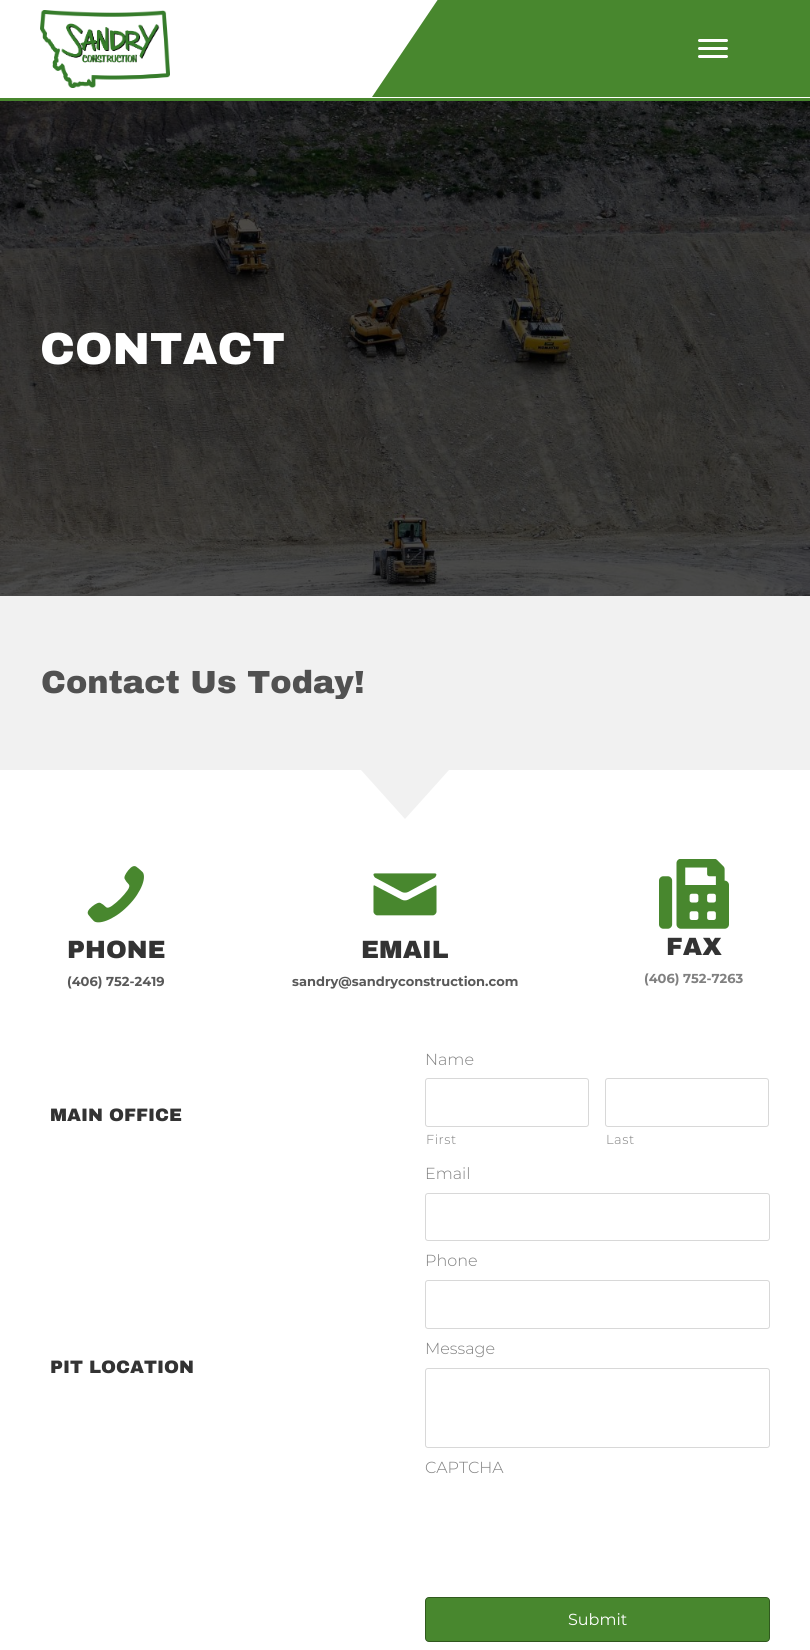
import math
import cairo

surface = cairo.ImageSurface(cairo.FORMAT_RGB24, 810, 1650)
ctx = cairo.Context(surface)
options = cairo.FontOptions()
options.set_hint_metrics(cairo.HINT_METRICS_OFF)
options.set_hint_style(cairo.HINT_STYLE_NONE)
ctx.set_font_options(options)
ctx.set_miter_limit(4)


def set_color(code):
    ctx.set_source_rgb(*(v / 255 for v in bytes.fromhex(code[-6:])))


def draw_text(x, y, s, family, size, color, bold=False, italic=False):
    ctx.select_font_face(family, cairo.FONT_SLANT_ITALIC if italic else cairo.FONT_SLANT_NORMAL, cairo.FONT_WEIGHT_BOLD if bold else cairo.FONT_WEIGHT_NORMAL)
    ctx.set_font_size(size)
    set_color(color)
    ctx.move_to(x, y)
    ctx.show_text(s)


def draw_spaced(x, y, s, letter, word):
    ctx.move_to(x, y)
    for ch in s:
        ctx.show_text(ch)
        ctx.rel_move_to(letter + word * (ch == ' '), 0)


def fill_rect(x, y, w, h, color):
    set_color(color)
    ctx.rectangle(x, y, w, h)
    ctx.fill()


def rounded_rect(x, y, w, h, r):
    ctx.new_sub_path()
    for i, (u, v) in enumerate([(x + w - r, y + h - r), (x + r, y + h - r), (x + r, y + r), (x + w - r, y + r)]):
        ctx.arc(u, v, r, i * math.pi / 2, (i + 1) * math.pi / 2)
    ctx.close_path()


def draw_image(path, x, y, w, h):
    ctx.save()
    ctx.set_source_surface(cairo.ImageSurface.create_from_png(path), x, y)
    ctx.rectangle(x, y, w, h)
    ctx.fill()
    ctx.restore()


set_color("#ffffff")
ctx.paint()
fill_rect(0, 98, 810, 3, "#48872e")
ctx.new_path()
ctx.move_to(810, -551)
ctx.line_to(372, 97)
ctx.line_to(810, 97)
ctx.close_path()
ctx.fill()
draw_image("assets/img1.png", 40, 10, 130, 78)
set_color("#ffffff")
rounded_rect(698, 47, 30, 3, 1.5)
ctx.fill()
rounded_rect(698, 39, 30, 3, 1.5)
ctx.fill()
rounded_rect(698, 55, 30, 3, 1.5)
ctx.fill()
draw_image("assets/img2.png", 0, 101, 810, 495)
draw_text(40, 364, "CONTACT", "Archivo Black Black", 45, "#ffffff")
fill_rect(0, 596, 810, 223, "#f1f1f1")
ctx.save()
ctx.rectangle(40, 666, 325, 33)
ctx.clip()
draw_text(41, 693, "Contact Us Today!", "Archivo Black Black", 32, "#515151")
ctx.restore()
set_color("#ffffff")
ctx.new_path()
ctx.move_to(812, 770)
ctx.line_to(449, 770)
ctx.line_to(405, 819)
ctx.line_to(361, 770)
ctx.line_to(-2, 770)
ctx.line_to(-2, 820)
ctx.line_to(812, 820)
ctx.close_path()
ctx.fill()
draw_image("assets/img3.png", 87, 866, 57, 57)
draw_text(67, 958, "PHONE", "Archivo Black Black", 25, "#333333")
draw_text(67, 986, "(406) 752-2419", "Montserrat", 13, "#595959", bold=True)
draw_image("assets/img4.png", 373, 873, 64, 43)
draw_text(361, 958, "EMAIL", "Archivo Black Black", 25, "#333333")
draw_text(292, 986, "sandry@sandryconstruction.com", "Montserrat", 13, "#595959", bold=True)
draw_image("assets/img5.png", 659, 859, 70, 70)
draw_text(666, 955, "FAX", "Archivo Black Black", 25, "#333333")
draw_text(644, 983, "(406) 752-7263", "Montserrat", 13, "#808080", bold=True)
draw_text(50, 1121, "MAIN OFFICE", "Archivo Black Black", 18, "#333333")
draw_text(50, 1373, "PIT LOCATION", "Archivo Black Black", 18, "#333333")
draw_text(425, 1065, "Name", "Montserrat Light", 16, "#808080")
rounded_rect(425.5, 1078.5, 163, 48, 2.5)
set_color("#d8d8d8")
ctx.set_line_width(1)
ctx.stroke()
ctx.set_font_size(13)
set_color("#808080")
draw_spaced(426, 1144, "First", 0.5, 0)
rounded_rect(605.5, 1078.5, 163, 48, 2.5)
set_color("#d8d8d8")
ctx.stroke()
set_color("#808080")
draw_spaced(606, 1144, "Last", 0.5, 0)
draw_text(425, 1179, "Email", "Montserrat Light", 16, "#808080")
rounded_rect(425.5, 1193.5, 344, 47, 2.5)
set_color("#d8d8d8")
ctx.stroke()
draw_text(425, 1266, "Phone", "Montserrat Light", 16, "#808080")
rounded_rect(425.5, 1280.5, 344, 48, 2.5)
set_color("#d8d8d8")
ctx.stroke()
draw_text(425, 1354, "Message", "Montserrat Light", 16, "#808080")
rounded_rect(425.5, 1368.5, 344, 79, 2.5)
set_color("#d8d8d8")
ctx.stroke()
draw_text(425, 1473, "CAPTCHA", "Montserrat Light", 16, "#808080")
set_color("#48872e")
rounded_rect(425.5, 1597.5, 344, 44, 3.5)
ctx.fill_preserve()
set_color("#30591e")
ctx.stroke()
draw_text(568, 1625, "Submit", "Montserrat", 16, "#ffffff")
surface.write_to_png("output.png")
